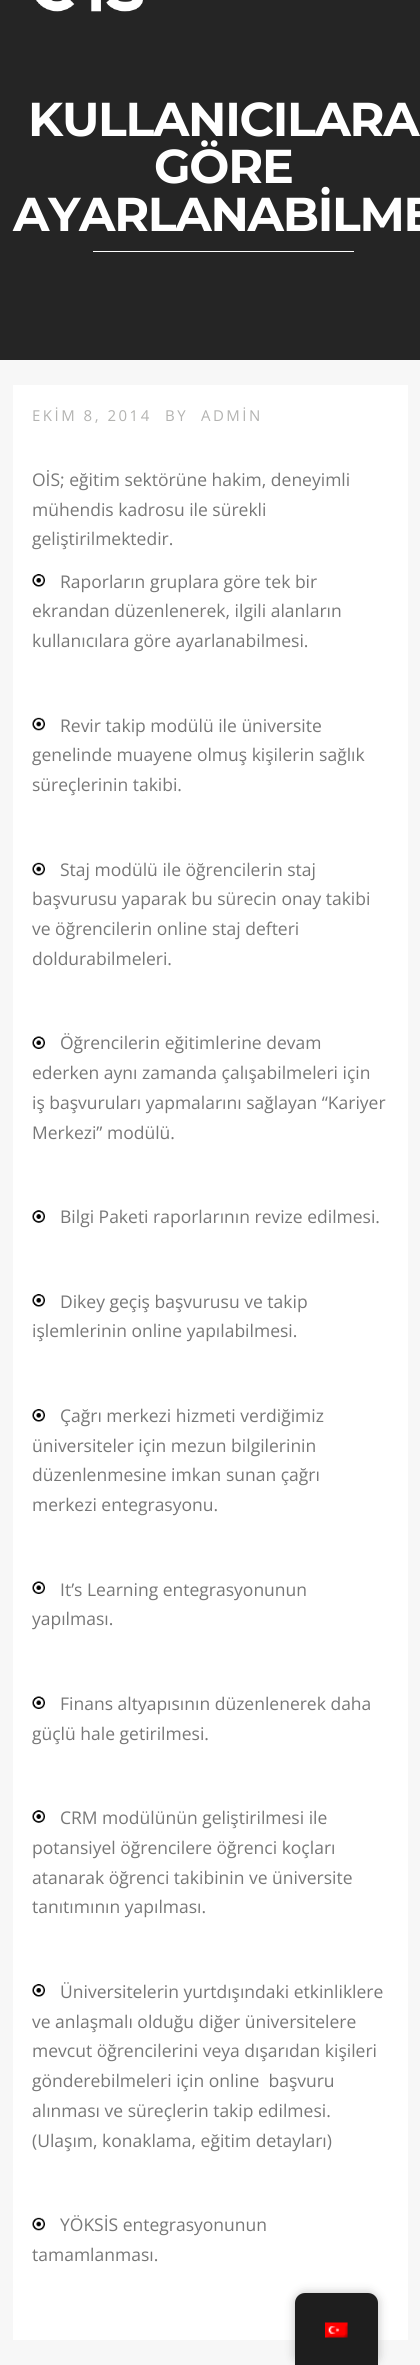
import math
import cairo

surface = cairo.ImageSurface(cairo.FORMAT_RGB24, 420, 2365)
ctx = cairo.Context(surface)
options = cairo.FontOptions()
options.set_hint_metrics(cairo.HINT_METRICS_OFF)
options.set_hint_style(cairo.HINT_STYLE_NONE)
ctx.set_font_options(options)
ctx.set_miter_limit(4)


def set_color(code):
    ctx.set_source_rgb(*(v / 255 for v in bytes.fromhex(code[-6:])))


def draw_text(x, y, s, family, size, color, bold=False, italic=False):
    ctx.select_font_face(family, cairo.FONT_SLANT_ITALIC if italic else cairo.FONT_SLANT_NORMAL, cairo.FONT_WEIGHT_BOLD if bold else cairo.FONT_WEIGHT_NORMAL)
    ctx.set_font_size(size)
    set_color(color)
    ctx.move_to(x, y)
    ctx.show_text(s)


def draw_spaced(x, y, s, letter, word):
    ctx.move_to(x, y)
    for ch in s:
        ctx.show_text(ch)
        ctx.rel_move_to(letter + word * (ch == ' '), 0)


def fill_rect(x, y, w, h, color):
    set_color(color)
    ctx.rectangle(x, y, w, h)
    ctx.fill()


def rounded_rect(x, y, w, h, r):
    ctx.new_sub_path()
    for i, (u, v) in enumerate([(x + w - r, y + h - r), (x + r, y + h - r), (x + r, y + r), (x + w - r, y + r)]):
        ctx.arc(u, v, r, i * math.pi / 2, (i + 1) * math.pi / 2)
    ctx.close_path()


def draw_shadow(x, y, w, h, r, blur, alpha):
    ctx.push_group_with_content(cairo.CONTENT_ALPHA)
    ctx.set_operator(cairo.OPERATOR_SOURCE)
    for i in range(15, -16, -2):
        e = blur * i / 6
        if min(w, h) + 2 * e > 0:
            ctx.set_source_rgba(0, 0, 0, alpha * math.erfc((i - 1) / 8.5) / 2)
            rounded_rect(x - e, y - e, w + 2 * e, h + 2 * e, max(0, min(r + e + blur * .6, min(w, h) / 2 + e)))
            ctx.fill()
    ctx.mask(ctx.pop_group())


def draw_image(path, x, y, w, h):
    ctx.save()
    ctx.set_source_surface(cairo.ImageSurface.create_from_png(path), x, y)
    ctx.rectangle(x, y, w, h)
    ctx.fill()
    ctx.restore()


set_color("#f7f7f7")
ctx.paint()
fill_rect(0, 0, 420, 360, "#252525")
draw_image("assets/img1.png", 36, 0, 107, 12)
ctx.select_font_face("Montserrat", cairo.FONT_SLANT_NORMAL, cairo.FONT_WEIGHT_BOLD)
ctx.set_font_size(47.5)
set_color("#ffffff")
draw_spaced(28, 136, "KULLANICILARA", -1.25, 0)
draw_spaced(154, 183, "GÖRE", -1.25, 0)
draw_spaced(13, 231, "AYARLANABİLME", -1.25, 0)
fill_rect(93, 251, 261, 1, "#ffffff")
fill_rect(13, 385, 395, 1955, "#ffffff")
ctx.select_font_face("Open Sans")
ctx.set_font_size(15)
set_color("#b3b3b1")
draw_spaced(32, 421, "EKİM 8, 2014", 2.5, 0)
draw_spaced(165, 421, "BY", 2.5, 0)
draw_spaced(201, 421, "ADMİN", 2.5, 0)
draw_text(32, 486, "OİS; eğitim sektörüne hakim, deneyimli", "Open Sans", 17.5, "#777777")
draw_text(32, 516, "mühendis kadrosu ile sürekli", "Open Sans", 17.5, "#777777")
draw_text(32, 545, "geliştirilmektedir.", "Open Sans", 17.5, "#777777")
draw_image("assets/img2.png", 32, 574, 13, 13)
draw_text(60, 588, "Raporların gruplara göre tek bir", "Open Sans", 17.5, "#777777")
draw_text(32, 617, "ekrandan düzenlenerek, ilgili alanların", "Open Sans", 17.5, "#777777")
draw_text(32, 647, "kullanıcılara göre ayarlanabilmesi.", "Open Sans", 17.5, "#777777")
draw_image("assets/img3.png", 32, 717, 13, 14)
draw_text(60, 732, "Revir takip modülü ile üniversite", "Open Sans", 17.5, "#777777")
draw_text(32, 761, "genelinde muayene olmuş kişilerin sağlık", "Open Sans", 17.5, "#777777")
draw_text(32, 791, "süreçlerinin takibi.", "Open Sans", 17.5, "#777777")
draw_image("assets/img3.png", 32, 862, 13, 14)
draw_text(60, 876, "Staj modülü ile öğrencilerin staj", "Open Sans", 17.5, "#777777")
draw_text(32, 905, "başvurusu yaparak bu sürecin onay takibi", "Open Sans", 17.5, "#777777")
draw_text(32, 935, "ve öğrencilerin online staj defteri", "Open Sans", 17.5, "#777777")
draw_text(32, 965, "doldurabilmeleri.", "Open Sans", 17.5, "#777777")
draw_image("assets/img4.png", 32, 1036, 13, 13)
draw_text(60, 1049, "Öğrencilerin eğitimlerine devam", "Open Sans", 17.5, "#777777")
draw_text(32, 1079, "ederken aynı zamanda çalışabilmeleri için", "Open Sans", 17.5, "#777777")
draw_text(32, 1109, "iş başvuruları yapmalarını sağlayan “Kariyer", "Open Sans", 17.5, "#777777")
draw_text(32, 1139, "Merkezi” modülü.", "Open Sans", 17.5, "#777777")
draw_image("assets/img5.png", 32, 1210, 13, 13)
draw_text(60, 1223, "Bilgi Paketi raporlarının revize edilmesi.", "Open Sans", 17.5, "#777777")
draw_image("assets/img2.png", 32, 1294, 13, 13)
draw_text(60, 1308, "Dikey geçiş başvurusu ve takip", "Open Sans", 17.5, "#777777")
draw_text(32, 1337, "işlemlerinin online yapılabilmesi.", "Open Sans", 17.5, "#777777")
draw_image("assets/img2.png", 32, 1409, 13, 13)
draw_text(60, 1422, "Çağrı merkezi hizmeti verdiğimiz", "Open Sans", 17.5, "#777777")
draw_text(32, 1452, "üniversiteler için mezun bilgilerinin", "Open Sans", 17.5, "#777777")
draw_text(32, 1481, "düzenlenmesine imkan sunan çağrı", "Open Sans", 17.5, "#777777")
draw_text(32, 1511, "merkezi entegrasyonu.", "Open Sans", 17.5, "#777777")
draw_image("assets/img4.png", 32, 1581, 13, 13)
draw_text(60, 1596, "It’s Learning entegrasyonunun", "Open Sans", 17.5, "#777777")
draw_text(32, 1625, "yapılması.", "Open Sans", 17.5, "#777777")
draw_image("assets/img4.png", 32, 1696, 13, 13)
draw_text(60, 1710, "Finans altyapısının düzenlenerek daha", "Open Sans", 17.5, "#777777")
draw_text(32, 1740, "güçlü hale getirilmesi.", "Open Sans", 17.5, "#777777")
draw_image("assets/img5.png", 32, 1810, 13, 13)
draw_text(60, 1824, "CRM modülünün geliştirilmesi ile", "Open Sans", 17.5, "#777777")
draw_text(32, 1854, "potansiyel öğrencilere öğrenci koçları", "Open Sans", 17.5, "#777777")
draw_text(32, 1884, "atanarak öğrenci takibinin ve üniversite", "Open Sans", 17.5, "#777777")
draw_text(32, 1913, "tanıtımının yapılması.", "Open Sans", 17.5, "#777777")
draw_image("assets/img2.png", 32, 1984, 13, 13)
draw_text(60, 1998, "Üniversitelerin yurtdışındaki etkinliklere", "Open Sans", 17.5, "#777777")
draw_text(32, 2028, "ve anlaşmalı olduğu diğer üniversitelere", "Open Sans", 17.5, "#777777")
draw_text(32, 2057, "mevcut öğrencilerini veya dışarıdan kişileri", "Open Sans", 17.5, "#777777")
draw_text(32, 2087, "gönderebilmeleri için online  başvuru", "Open Sans", 17.5, "#777777")
draw_text(32, 2117, "alınması ve süreçlerin takip edilmesi.", "Open Sans", 17.5, "#777777")
draw_text(32, 2147, "(Ulaşım, konaklama, eğitim detayları)", "Open Sans", 17.5, "#777777")
draw_image("assets/img3.png", 32, 2217, 13, 14)
draw_text(60, 2231, "YÖKSİS entegrasyonunun", "Open Sans", 17.5, "#777777")
draw_text(32, 2261, "tamamlanması.", "Open Sans", 17.5, "#777777")
set_color("#000000")
draw_shadow(295, 2293, 83, 72, 10, 5, 0.25)
set_color("#1e1e1e")
ctx.new_path()
ctx.move_to(305, 2293)
ctx.line_to(368, 2293)
ctx.curve_to(373.5, 2293, 378, 2297.5, 378, 2303)
ctx.line_to(378, 2365)
ctx.line_to(295, 2365)
ctx.line_to(295, 2303)
ctx.curve_to(295, 2297.5, 299.5, 2293, 305, 2293)
ctx.close_path()
ctx.fill()
draw_image("assets/img6.png", 325, 2322, 23, 16)
surface.write_to_png("output.png")
